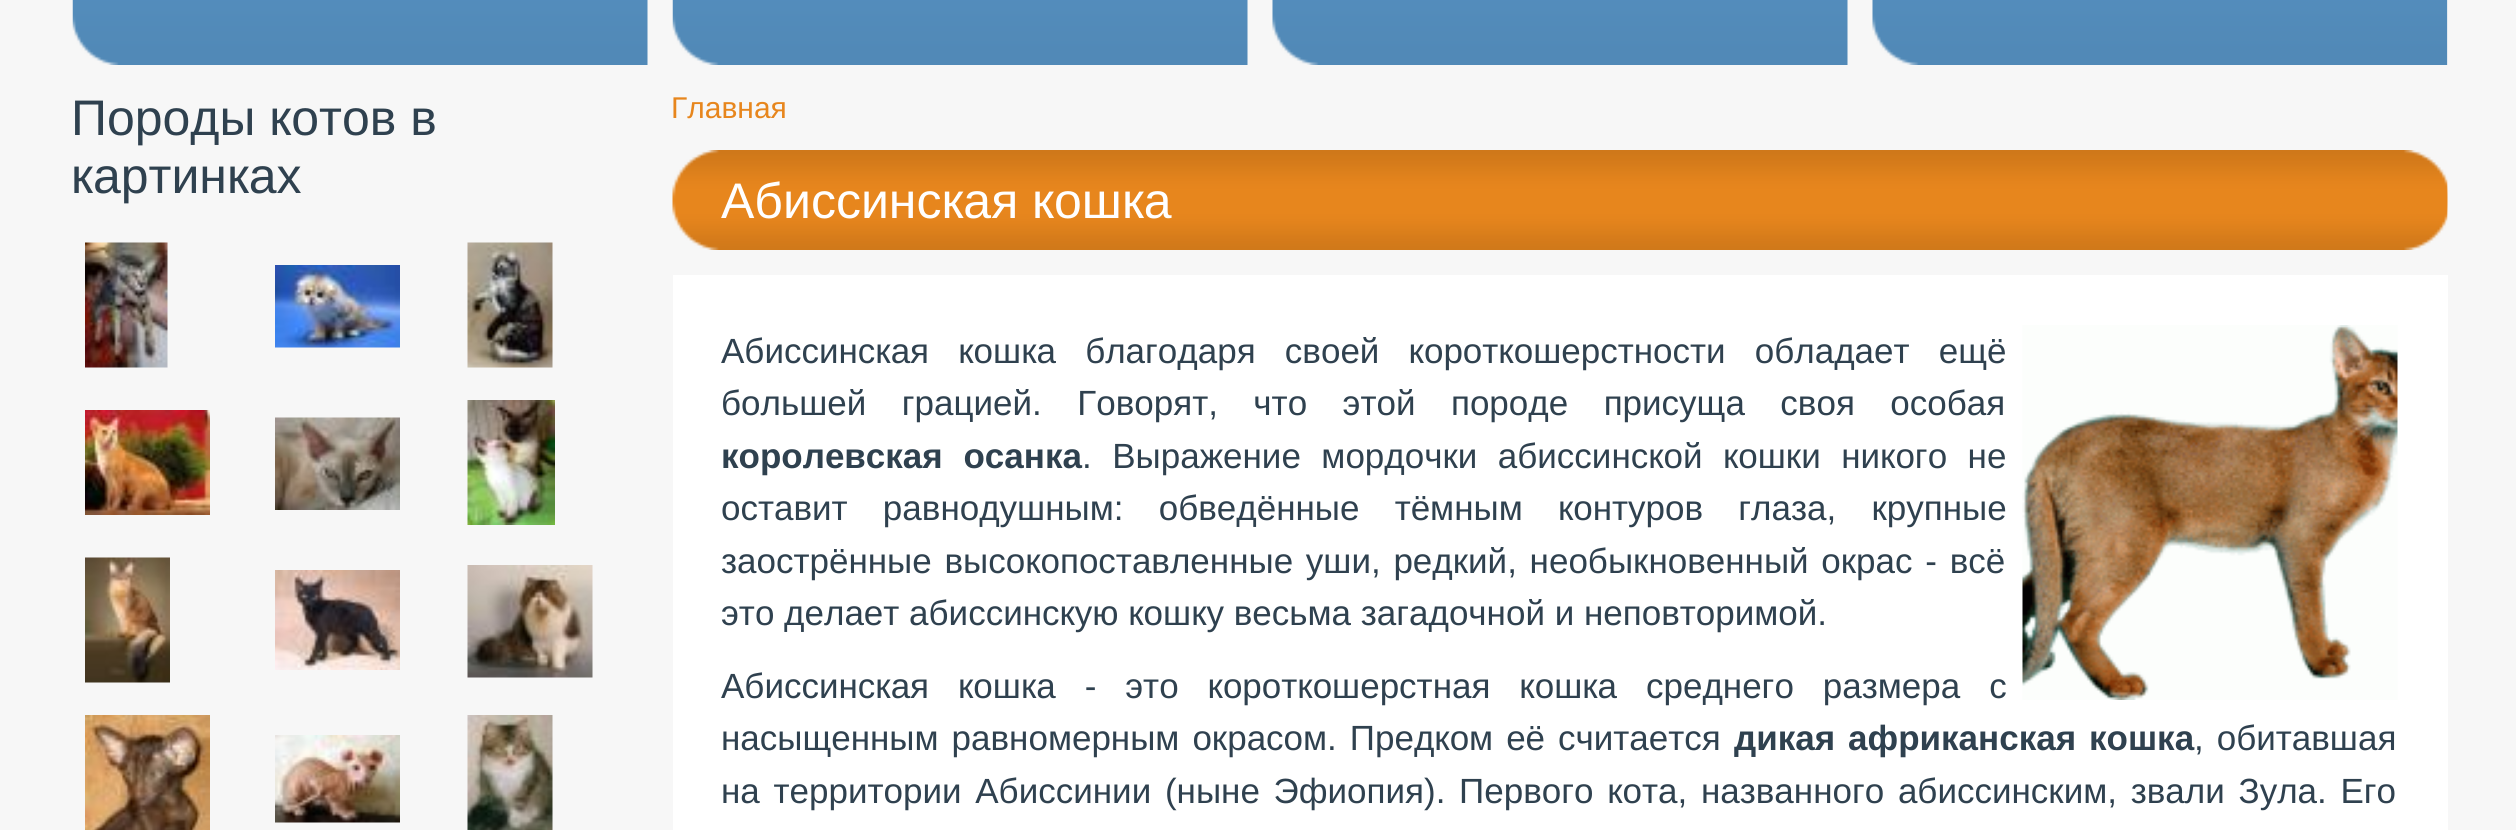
import math
import cairo

surface = cairo.ImageSurface(cairo.FORMAT_RGB24, 2516, 830)
ctx = cairo.Context(surface)
options = cairo.FontOptions()
options.set_hint_metrics(cairo.HINT_METRICS_OFF)
options.set_hint_style(cairo.HINT_STYLE_NONE)
ctx.set_font_options(options)
ctx.set_miter_limit(4)


def set_color(code):
    ctx.set_source_rgb(*(v / 255 for v in bytes.fromhex(code[-6:])))


def draw_text(x, y, s, family, size, color, bold=False, italic=False):
    ctx.select_font_face(family, cairo.FONT_SLANT_ITALIC if italic else cairo.FONT_SLANT_NORMAL, cairo.FONT_WEIGHT_BOLD if bold else cairo.FONT_WEIGHT_NORMAL)
    ctx.set_font_size(size)
    set_color(color)
    ctx.move_to(x, y)
    ctx.show_text(s)


def draw_spaced(x, y, s, letter, word):
    ctx.move_to(x, y)
    for ch in s:
        ctx.show_text(ch)
        ctx.rel_move_to(letter + word * (ch == ' '), 0)


def fill_rect(x, y, w, h, color):
    set_color(color)
    ctx.rectangle(x, y, w, h)
    ctx.fill()


def draw_image(path, x, y, w, h):
    ctx.save()
    ctx.set_source_surface(cairo.ImageSurface.create_from_png(path), x, y)
    ctx.rectangle(x, y, w, h)
    ctx.fill()
    ctx.restore()


set_color("#f7f7f7")
ctx.paint()
draw_image("assets/img1.png", 72, 0, 576, 65)
draw_text(71, 135, "Породы котов в", "Liberation Sans", 50, "#2f414f")
draw_text(71, 193, "картинках", "Liberation Sans", 50, "#2f414f")
draw_image("assets/img2.png", 85, 242, 83, 126)
draw_image("assets/img3.png", 275, 265, 125, 83)
draw_image("assets/img4.png", 467, 242, 86, 126)
draw_image("assets/img5.png", 85, 410, 125, 105)
draw_image("assets/img6.png", 275, 417, 125, 93)
draw_image("assets/img7.png", 467, 400, 88, 125)
draw_image("assets/img8.png", 85, 557, 85, 126)
draw_image("assets/img9.png", 275, 570, 125, 100)
draw_image("assets/img10.png", 467, 565, 126, 113)
draw_image("assets/img11.png", 85, 715, 125, 115)
draw_image("assets/img12.png", 275, 735, 125, 88)
draw_image("assets/img13.png", 467, 715, 86, 115)
draw_image("assets/img14.png", 672, 0, 576, 65)
draw_image("assets/img15.png", 1272, 0, 576, 65)
draw_image("assets/img16.png", 1872, 0, 576, 65)
draw_text(671, 118, "Главная", "Liberation Sans", 30, "#e7861d")
draw_image("assets/img17.png", 672, 150, 1776, 100)
draw_text(721, 218, "Абиссинская кошка", "Liberation Sans", 50, "#ffffff")
fill_rect(673, 275, 1775, 555, "#ffffff")
ctx.set_font_size(35)
set_color("#2f414f")
draw_spaced(721, 363, "Абиссинская кошка благодаря своей короткошерстности обладает ещё", 0, 19.5)
draw_spaced(721, 415, "большей грацией. Говорят, что этой породе присуща своя особая", 0, 25.75)
ctx.select_font_face("Liberation Sans", cairo.FONT_SLANT_NORMAL, cairo.FONT_WEIGHT_BOLD)
draw_spaced(721, 468, "королевская осанка", 0, 11)
ctx.select_font_face("Liberation Sans")
draw_spaced(1082, 468, ". Выражение мордочки абиссинской кошки никого не", 0, 10.75)
draw_spaced(721, 520, "оставит равнодушным: обведённые тёмным контуров глаза, крупные", 0, 25.5)
draw_spaced(721, 573, "заострённые высокопоставленные уши, редкий, необыкновенный окрас - всё", 0, 3)
draw_text(721, 625, "это делает абиссинскую кошку весьма загадочной и неповторимой.", "Liberation Sans", 35, "#2f414f")
draw_image("assets/img18.png", 2022, 325, 376, 375)
draw_spaced(721, 698, "Абиссинская кошка - это короткошерстная кошка среднего размера с", 0, 19.25)
draw_spaced(721, 750, "насыщенным равномерным окрасом. Предком её считается", 0, 3.25)
ctx.select_font_face("Liberation Sans", cairo.FONT_SLANT_NORMAL, cairo.FONT_WEIGHT_BOLD)
draw_spaced(1734, 750, "дикая африканская кошка", 0, 3.25)
ctx.select_font_face("Liberation Sans")
draw_spaced(2194, 750, ", обитавшая", 0, 3.25)
draw_spaced(721, 803, "на территории Абиссинии (ныне Эфиопия). Первого кота, названного абиссинским, звали Зула. Его", 0, 4)
surface.write_to_png("output.png")
